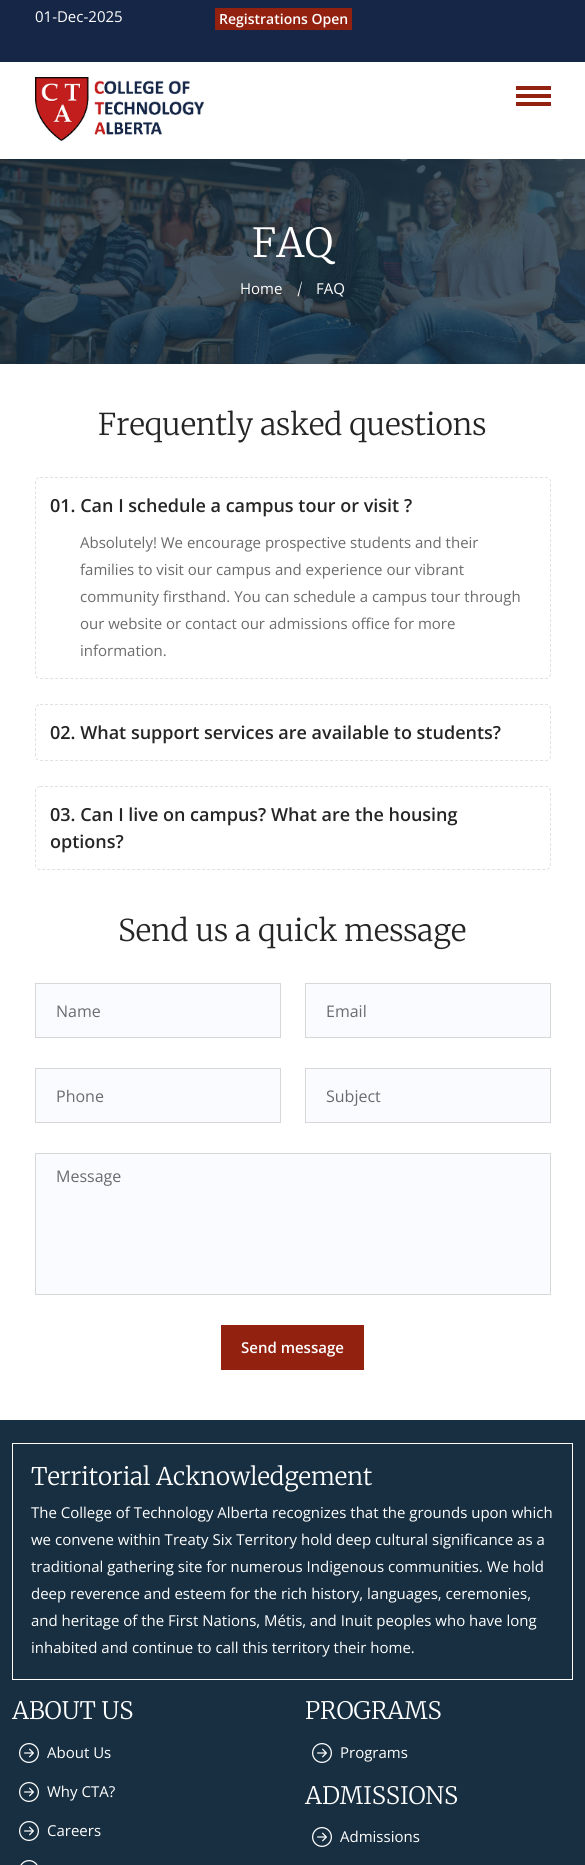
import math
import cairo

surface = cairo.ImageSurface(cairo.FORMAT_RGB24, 585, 1865)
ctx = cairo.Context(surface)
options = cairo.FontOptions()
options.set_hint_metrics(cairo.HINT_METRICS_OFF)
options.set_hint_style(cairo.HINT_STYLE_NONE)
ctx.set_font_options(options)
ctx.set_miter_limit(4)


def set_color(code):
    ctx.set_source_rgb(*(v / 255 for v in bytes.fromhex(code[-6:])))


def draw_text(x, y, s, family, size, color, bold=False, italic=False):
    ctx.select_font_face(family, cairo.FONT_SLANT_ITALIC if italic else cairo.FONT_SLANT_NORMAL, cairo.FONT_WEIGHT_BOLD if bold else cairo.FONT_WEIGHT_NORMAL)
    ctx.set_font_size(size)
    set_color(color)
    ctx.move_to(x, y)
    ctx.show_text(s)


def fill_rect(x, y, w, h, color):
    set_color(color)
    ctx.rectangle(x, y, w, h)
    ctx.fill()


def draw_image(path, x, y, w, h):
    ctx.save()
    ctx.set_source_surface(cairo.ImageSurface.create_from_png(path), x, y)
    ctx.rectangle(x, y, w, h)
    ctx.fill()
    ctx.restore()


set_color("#ffffff")
ctx.paint()
fill_rect(0, 0, 585, 62, "#152647")
draw_text(35, 22, "01-Dec-2025", "Open Sans", 15, "#ffffff")
fill_rect(215, 8, 137, 22, "#92210f")
draw_text(219, 24, "Registrations Open", "Open Sans SemiBold", 14, "#ffffff")
draw_image("assets/img1.png", 35, 77, 169, 64)
fill_rect(516, 86, 35, 4, "#92210f")
fill_rect(516, 94, 35, 4, "#92210f")
fill_rect(516, 102, 35, 4, "#92210f")
draw_image("assets/img2.png", 0, 159, 585, 205)
draw_text(252, 257, "FAQ", "Merriweather Light", 40, "#ffffff")
draw_text(240, 294, "Home", "Open Sans", 15, "#ffffff")
ctx.new_path()
ctx.move_to(301.5, 281.5)
ctx.line_to(302, 282)
ctx.line_to(298.5, 296.5)
ctx.line_to(297.5, 296)
ctx.close_path()
ctx.fill()
draw_text(316, 294, "FAQ", "Open Sans", 15, "#ffffff")
draw_text(98, 435, "Frequently asked questions", "Merriweather Light", 30, "#252525")
ctx.new_path()
ctx.move_to(40, 477.5)
ctx.line_to(546, 477.5)
ctx.curve_to(548.5, 477.5, 550.5, 479.5, 550.5, 482)
ctx.line_to(550.5, 674)
ctx.curve_to(550.5, 676.5, 548.5, 678.5, 546, 678.5)
ctx.line_to(40, 678.5)
ctx.curve_to(37.5, 678.5, 35.5, 676.5, 35.5, 674)
ctx.line_to(35.5, 482)
ctx.curve_to(35.5, 479.5, 37.5, 477.5, 40, 477.5)
ctx.close_path()
set_color("#e1e1e1")
ctx.set_line_width(1)
ctx.set_dash([3, 2])
ctx.stroke()
draw_text(50, 512, "01. Can I schedule a campus tour or visit ?", "Open Sans SemiBold", 18, "#252525")
draw_text(80, 548, "Absolutely! We encourage prospective students and their", "Open Sans", 15, "#6b6b6b")
draw_text(80, 575, "families to visit our campus and experience our vibrant", "Open Sans", 15, "#6b6b6b")
draw_text(80, 602, "community firsthand. You can schedule a campus tour through", "Open Sans", 15, "#6b6b6b")
draw_text(80, 629, "our website or contact our admissions office for more", "Open Sans", 15, "#6b6b6b")
draw_text(80, 656, "information.", "Open Sans", 15, "#6b6b6b")
ctx.new_path()
ctx.move_to(40, 704.5)
ctx.line_to(546, 704.5)
ctx.curve_to(548.5, 704.5, 550.5, 706.5, 550.5, 709)
ctx.line_to(550.5, 756)
ctx.curve_to(550.5, 758.5, 548.5, 760.5, 546, 760.5)
ctx.line_to(40, 760.5)
ctx.curve_to(37.5, 760.5, 35.5, 758.5, 35.5, 756)
ctx.line_to(35.5, 709)
ctx.curve_to(35.5, 706.5, 37.5, 704.5, 40, 704.5)
ctx.close_path()
set_color("#e1e1e1")
ctx.stroke()
draw_text(50, 739, "02. What support services are available to students?", "Open Sans SemiBold", 18, "#252525")
ctx.new_path()
ctx.move_to(40, 786.5)
ctx.line_to(546, 786.5)
ctx.curve_to(548.5, 786.5, 550.5, 788.5, 550.5, 791)
ctx.line_to(550.5, 865)
ctx.curve_to(550.5, 867.5, 548.5, 869.5, 546, 869.5)
ctx.line_to(40, 869.5)
ctx.curve_to(37.5, 869.5, 35.5, 867.5, 35.5, 865)
ctx.line_to(35.5, 791)
ctx.curve_to(35.5, 788.5, 37.5, 786.5, 40, 786.5)
ctx.close_path()
set_color("#e1e1e1")
ctx.stroke()
draw_text(50, 821, "03. Can I live on campus? What are the housing", "Open Sans SemiBold", 18, "#252525")
draw_text(50, 848, "options?", "Open Sans SemiBold", 18, "#252525")
draw_text(118, 941, "Send us a quick message", "Merriweather Light", 30, "#252525")
set_color("#f9fbfe")
ctx.rectangle(35.5, 983.5, 245, 54)
ctx.fill_preserve()
set_color("#d7d7d7")
ctx.set_dash([])
ctx.stroke()
draw_text(56, 1017, "Name", "Open Sans", 16, "#6b6b6b")
set_color("#f9fbfe")
ctx.rectangle(305.5, 983.5, 245, 54)
ctx.fill_preserve()
set_color("#d7d7d7")
ctx.stroke()
draw_text(326, 1017, "Email", "Open Sans", 16, "#6b6b6b")
set_color("#f9fbfe")
ctx.rectangle(35.5, 1068.5, 245, 54)
ctx.fill_preserve()
set_color("#d7d7d7")
ctx.stroke()
draw_text(56, 1102, "Phone", "Open Sans", 16, "#6b6b6b")
set_color("#f9fbfe")
ctx.rectangle(305.5, 1068.5, 245, 54)
ctx.fill_preserve()
set_color("#d7d7d7")
ctx.stroke()
draw_text(326, 1102, "Subject", "Open Sans", 16, "#6b6b6b")
set_color("#f9fbfe")
ctx.rectangle(35.5, 1153.5, 515, 141)
ctx.fill_preserve()
set_color("#d7d7d7")
ctx.stroke()
draw_text(56, 1182, "Message", "Open Sans", 16, "#6b6b6b")
fill_rect(221, 1325, 143, 45, "#92210f")
draw_text(241, 1353, "Send message", "Open Sans SemiBold", 15, "#ffffff")
fill_rect(0, 1420, 585, 445, "#172f41")
ctx.rectangle(12.5, 1443.5, 560, 236)
set_color("#ffffff")
ctx.stroke()
draw_text(31, 1485, "Territorial Acknowledgement", "Merriweather Light", 24.25, "#ffffff")
draw_text(31, 1518, "The College of Technology Alberta recognizes that the grounds upon which", "Open Sans", 15, "#ffffff")
draw_text(31, 1545, "we convene within Treaty Six Territory hold deep cultural significance as a", "Open Sans", 15, "#ffffff")
draw_text(31, 1572, "traditional gathering site for numerous Indigenous communities. We hold", "Open Sans", 15, "#ffffff")
draw_text(31, 1599, "deep reverence and esteem for the rich history, languages, ceremonies,", "Open Sans", 15, "#ffffff")
draw_text(31, 1626, "and heritage of the First Nations, Métis, and Inuit peoples who have long", "Open Sans", 15, "#ffffff")
draw_text(31, 1653, "inhabited and continue to call this territory their home.", "Open Sans", 15, "#ffffff")
draw_text(12, 1719, "ABOUT US", "Merriweather Light", 24, "#ffffff")
draw_image("assets/img3.png", 19, 1743, 20, 20)
draw_text(47, 1758, "About Us", "Open Sans", 15, "#ffffff")
draw_image("assets/img3.png", 19, 1782, 20, 20)
draw_text(47, 1797, "Why CTA?", "Open Sans", 15, "#ffffff")
draw_image("assets/img3.png", 19, 1821, 20, 20)
draw_text(47, 1836, "Careers", "Open Sans", 15, "#ffffff")
draw_image("assets/img4.png", 20, 1860, 18, 5)
draw_text(305, 1719, "PROGRAMS", "Merriweather Light", 24, "#ffffff")
draw_image("assets/img3.png", 312, 1743, 20, 20)
draw_text(340, 1758, "Programs", "Open Sans", 15, "#ffffff")
draw_text(305, 1804, "ADMISSIONS", "Merriweather Light", 24, "#ffffff")
draw_image("assets/img3.png", 312, 1827, 20, 20)
draw_text(340, 1842, "Admissions", "Open Sans", 15, "#ffffff")
surface.write_to_png("output.png")
